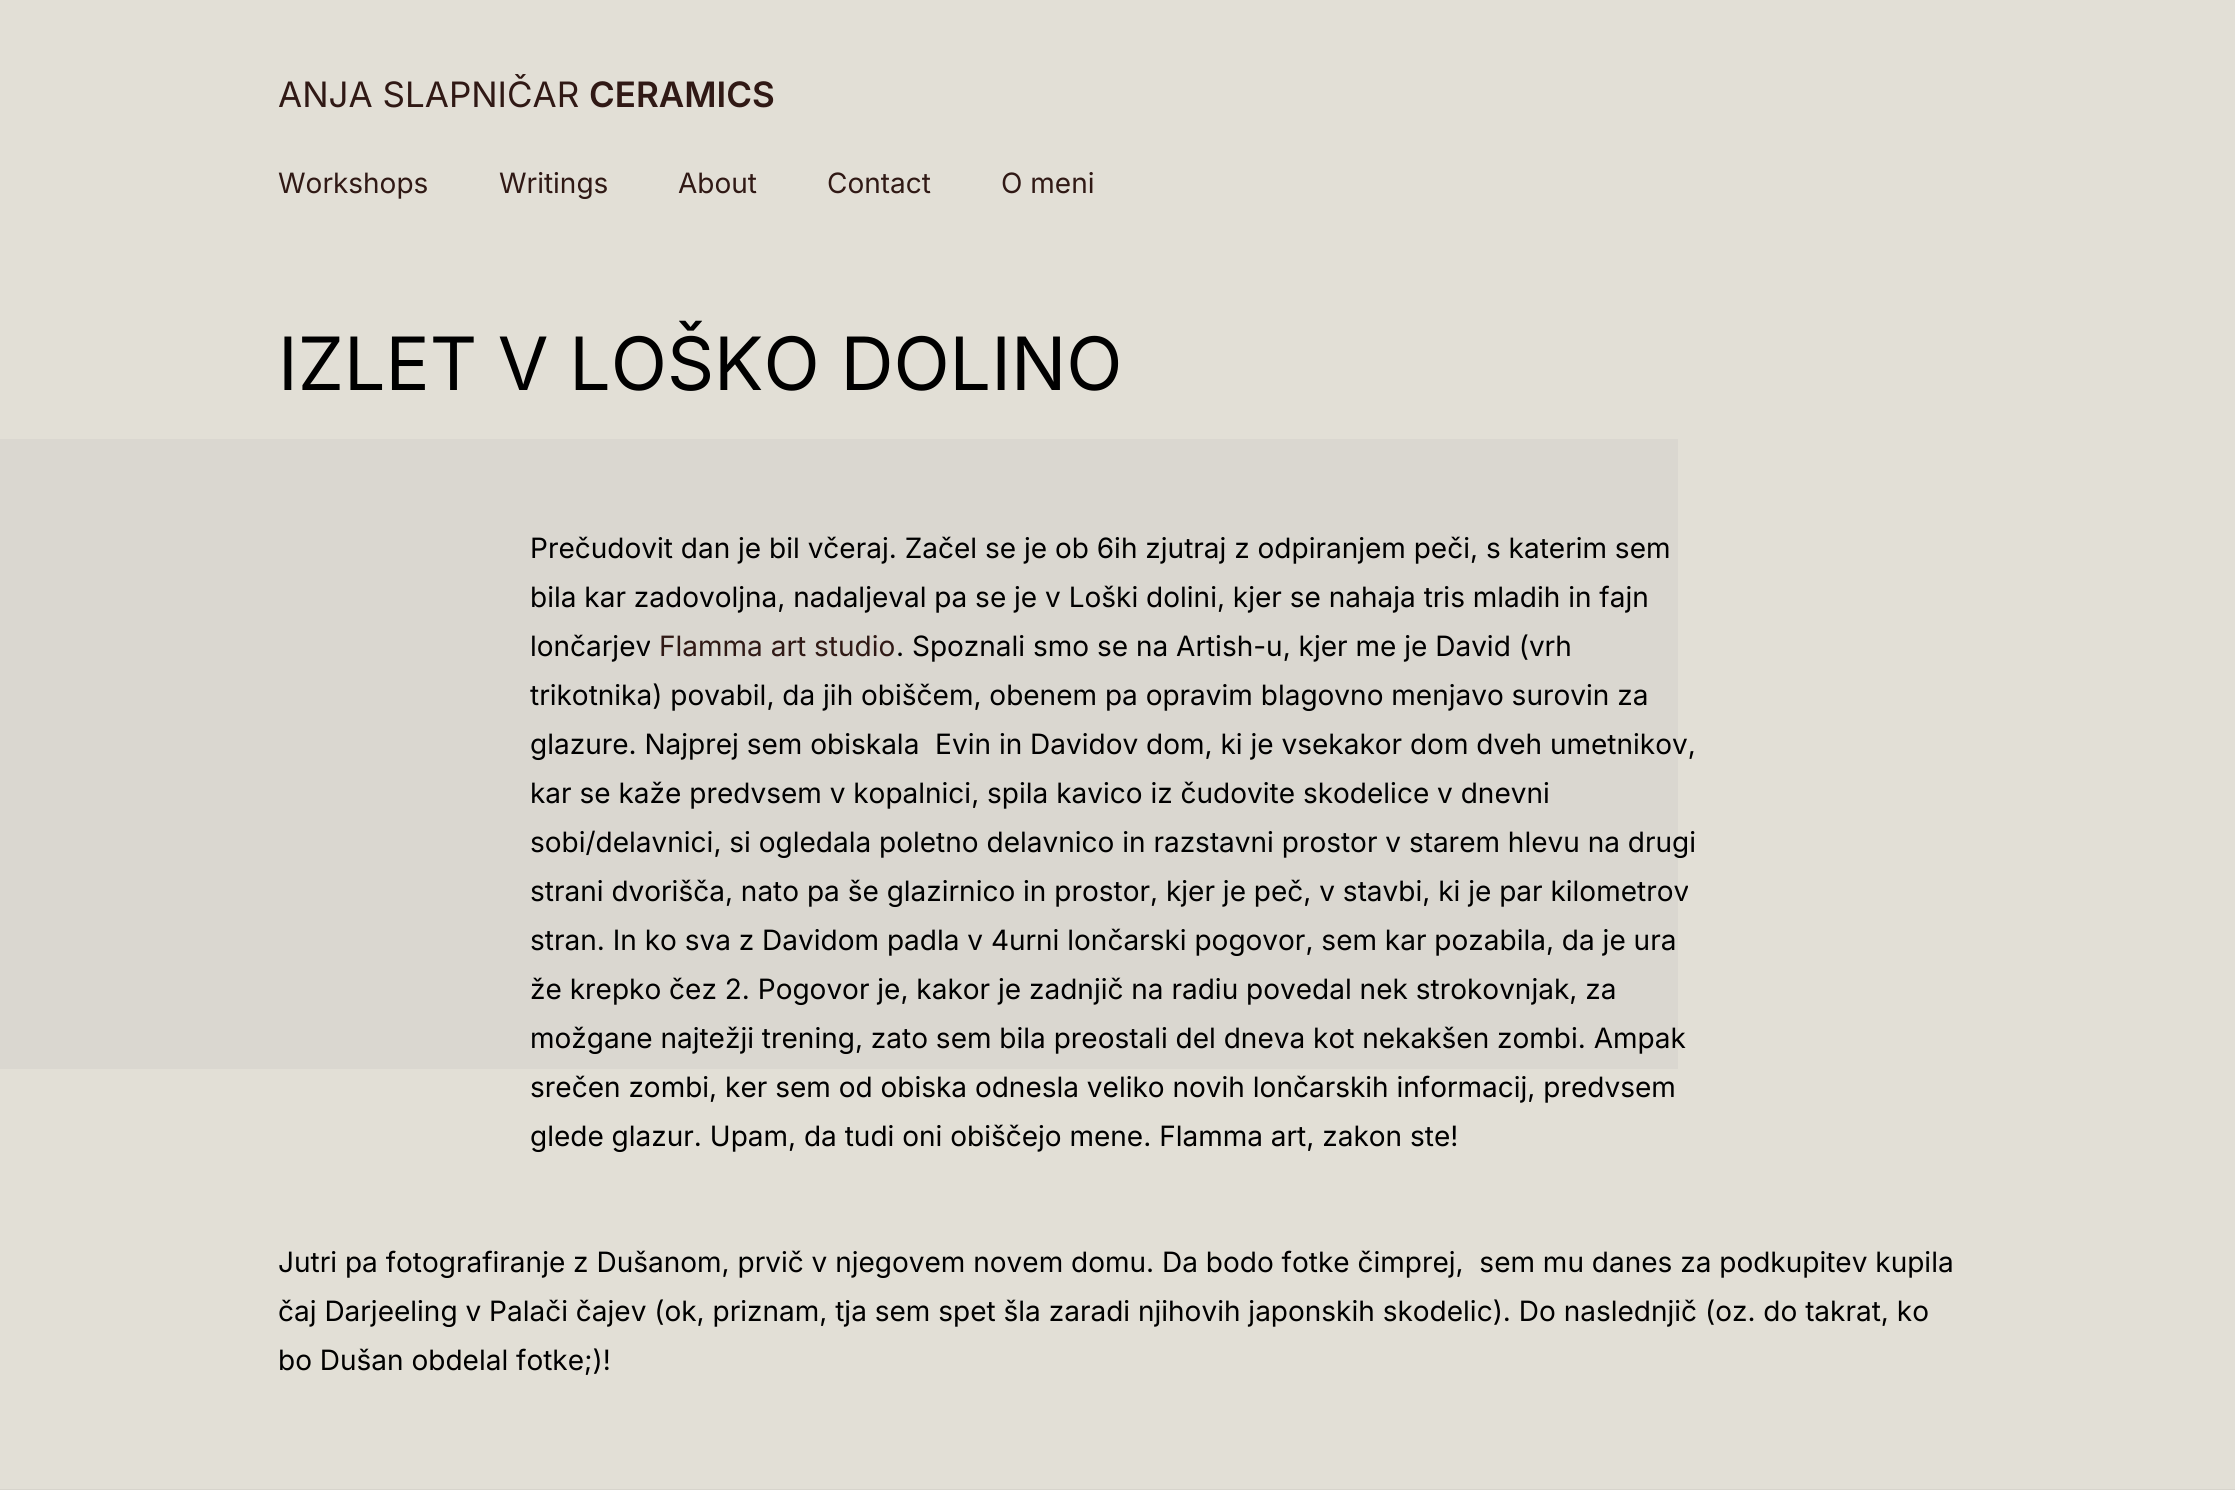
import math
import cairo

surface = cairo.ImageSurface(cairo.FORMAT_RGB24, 2235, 1490)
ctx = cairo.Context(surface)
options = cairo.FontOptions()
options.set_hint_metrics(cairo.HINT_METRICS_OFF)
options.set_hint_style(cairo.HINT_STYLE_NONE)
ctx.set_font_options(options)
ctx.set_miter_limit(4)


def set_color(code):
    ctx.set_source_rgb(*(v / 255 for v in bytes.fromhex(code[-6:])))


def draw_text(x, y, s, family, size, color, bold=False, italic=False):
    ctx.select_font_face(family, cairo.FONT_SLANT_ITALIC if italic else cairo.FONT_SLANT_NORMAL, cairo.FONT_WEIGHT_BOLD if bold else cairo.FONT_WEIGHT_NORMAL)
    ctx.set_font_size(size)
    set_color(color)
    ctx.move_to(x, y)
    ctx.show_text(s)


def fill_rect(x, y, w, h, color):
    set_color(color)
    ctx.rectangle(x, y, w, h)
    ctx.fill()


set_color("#e2dfd6")
ctx.paint()
draw_text(278, 107, "ANJA SLAPNIČAR", "Inter", 35, "#301915")
draw_text(589, 107, "CERAMICS", "Inter SemiBold", 35, "#301915")
draw_text(278, 193, "Workshops", "Inter", 28, "#301915")
draw_text(499, 193, "Writings", "Inter", 28, "#301915")
draw_text(678, 193, "About", "Inter", 28, "#301915")
draw_text(827, 193, "Contact", "Inter", 28, "#301915")
draw_text(1001, 193, "O meni", "Inter", 28, "#301915")
fill_rect(0, 439, 1678, 630, "#dad7d0")
draw_text(278, 390, "IZLET V LOŠKO DOLINO", "Inter", 73.5, "#000000")
draw_text(530, 558, "Prečudovit dan je bil včeraj. Začel se je ob 6ih zjutraj z odpiranjem peči, s katerim sem", "Inter", 28, "#000000")
draw_text(530, 607, "bila kar zadovoljna, nadaljeval pa se je v Loški dolini, kjer se nahaja tris mladih in fajn", "Inter", 28, "#000000")
draw_text(530, 656, "lončarjev", "Inter", 28, "#000000")
draw_text(659, 656, "Flamma art studio", "Inter", 28, "#301915")
draw_text(896, 656, ". Spoznali smo se na Artish-u, kjer me je David (vrh", "Inter", 28, "#000000")
draw_text(530, 705, "trikotnika) povabil, da jih obiščem, obenem pa opravim blagovno menjavo surovin za", "Inter", 28, "#000000")
draw_text(530, 754, "glazure. Najprej sem obiskala  Evin in Davidov dom, ki je vsekakor dom dveh umetnikov,", "Inter", 28, "#000000")
draw_text(530, 803, "kar se kaže predvsem v kopalnici, spila kavico iz čudovite skodelice v dnevni", "Inter", 28, "#000000")
draw_text(530, 852, "sobi/delavnici, si ogledala poletno delavnico in razstavni prostor v starem hlevu na drugi", "Inter", 28, "#000000")
draw_text(530, 901, "strani dvorišča, nato pa še glazirnico in prostor, kjer je peč, v stavbi, ki je par kilometrov", "Inter", 28, "#000000")
draw_text(530, 950, "stran. In ko sva z Davidom padla v 4urni lončarski pogovor, sem kar pozabila, da je ura", "Inter", 28, "#000000")
draw_text(530, 999, "že krepko čez 2. Pogovor je, kakor je zadnjič na radiu povedal nek strokovnjak, za", "Inter", 28, "#000000")
draw_text(530, 1048, "možgane najtežji trening, zato sem bila preostali del dneva kot nekakšen zombi. Ampak", "Inter", 28, "#000000")
draw_text(530, 1097, "srečen zombi, ker sem od obiska odnesla veliko novih lončarskih informacij, predvsem", "Inter", 28, "#000000")
draw_text(530, 1146, "glede glazur. Upam, da tudi oni obiščejo mene. Flamma art, zakon ste!", "Inter", 28, "#000000")
draw_text(278, 1272, "Jutri pa fotografiranje z Dušanom, prvič v njegovem novem domu. Da bodo fotke čimprej,  sem mu danes za podkupitev kupila", "Inter", 28, "#000000")
draw_text(278, 1321, "čaj Darjeeling v Palači čajev (ok, priznam, tja sem spet šla zaradi njihovih japonskih skodelic). Do naslednjič (oz. do takrat, ko", "Inter", 28, "#000000")
draw_text(278, 1370, "bo Dušan obdelal fotke;)!", "Inter", 28, "#000000")
fill_rect(0, 1489, 2235, 1, "#d7d4cc")
surface.write_to_png("output.png")
